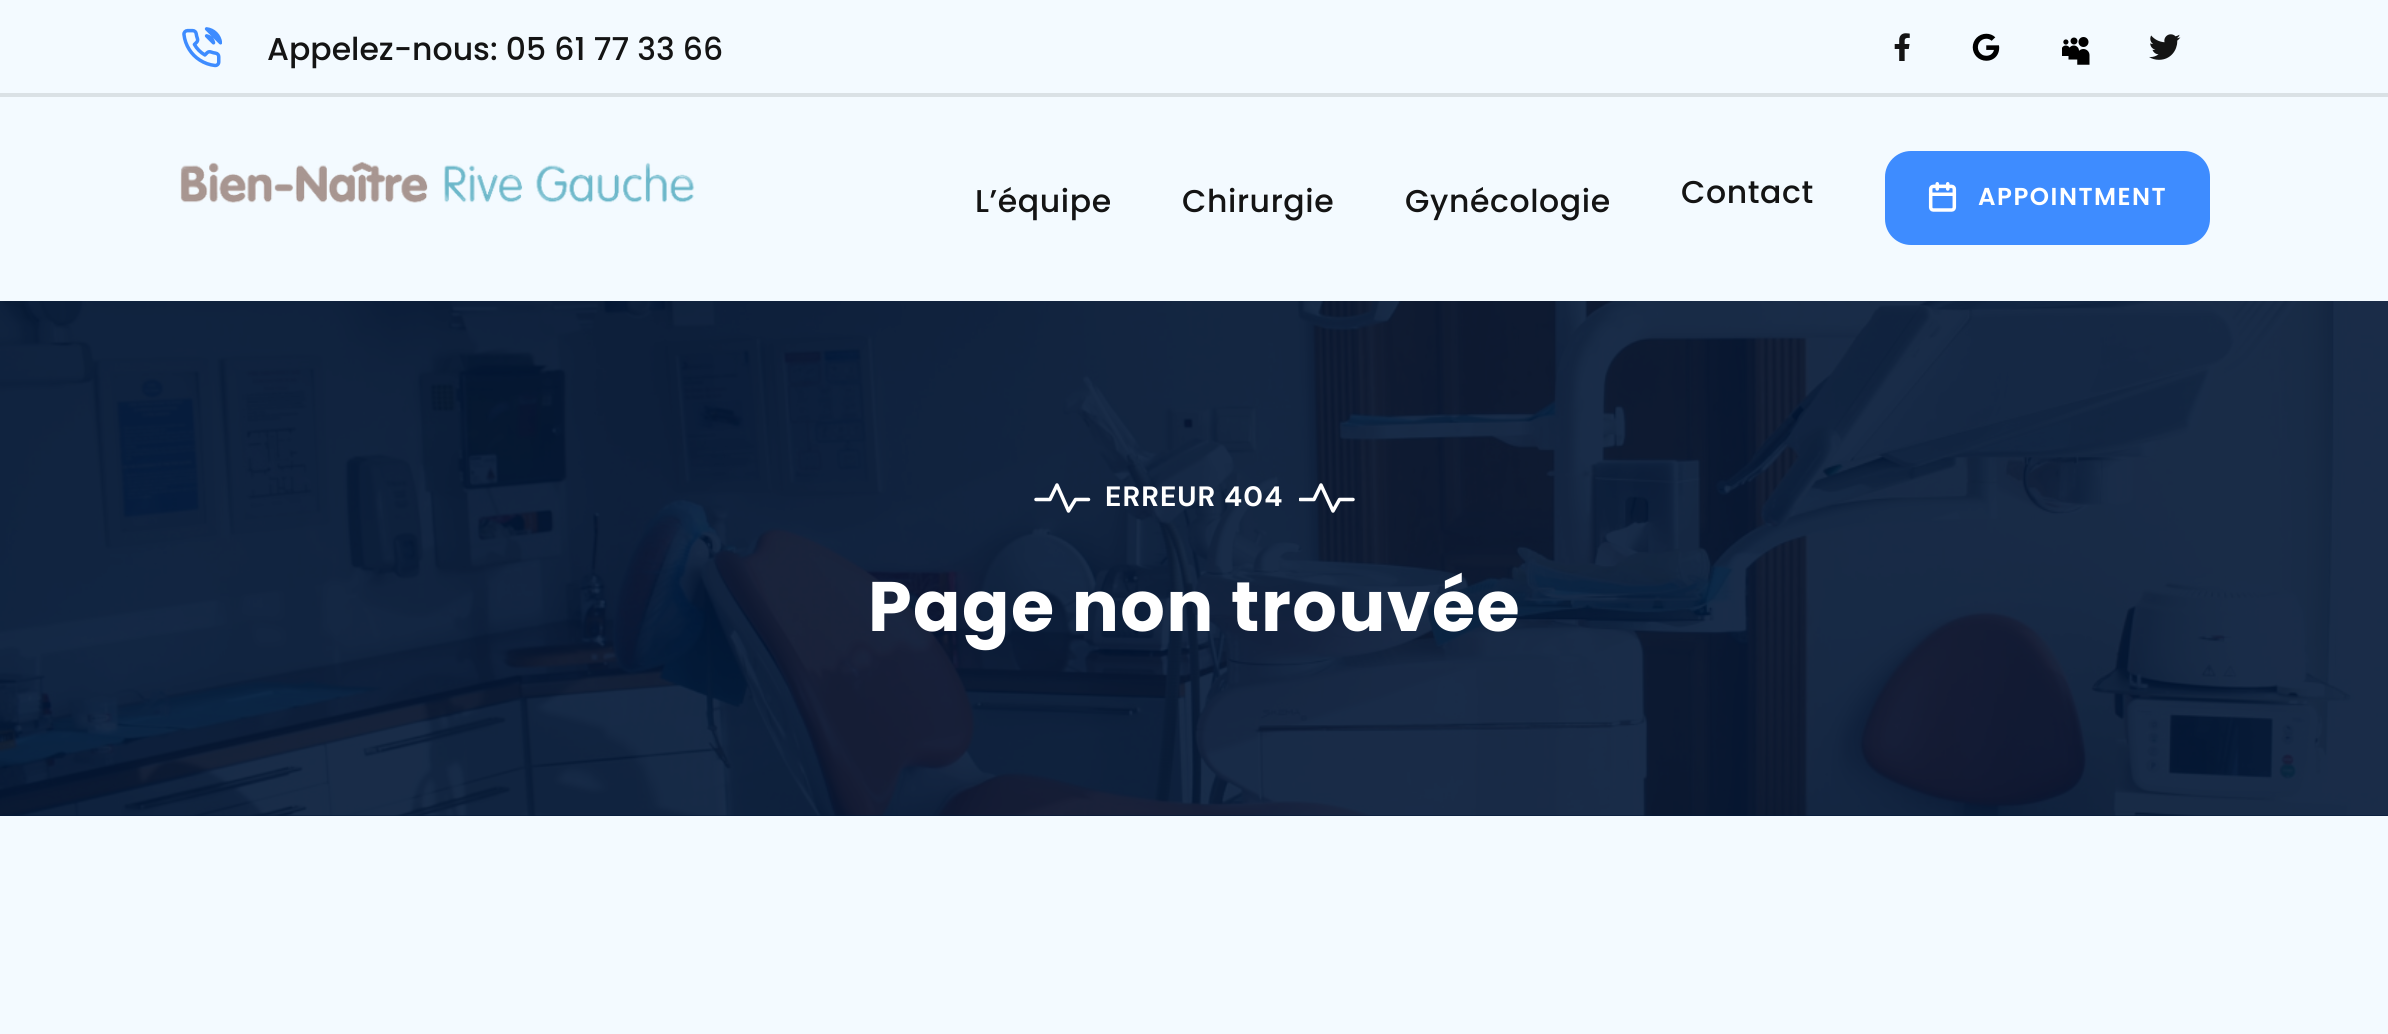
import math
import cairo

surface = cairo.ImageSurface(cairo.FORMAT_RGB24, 2388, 1034)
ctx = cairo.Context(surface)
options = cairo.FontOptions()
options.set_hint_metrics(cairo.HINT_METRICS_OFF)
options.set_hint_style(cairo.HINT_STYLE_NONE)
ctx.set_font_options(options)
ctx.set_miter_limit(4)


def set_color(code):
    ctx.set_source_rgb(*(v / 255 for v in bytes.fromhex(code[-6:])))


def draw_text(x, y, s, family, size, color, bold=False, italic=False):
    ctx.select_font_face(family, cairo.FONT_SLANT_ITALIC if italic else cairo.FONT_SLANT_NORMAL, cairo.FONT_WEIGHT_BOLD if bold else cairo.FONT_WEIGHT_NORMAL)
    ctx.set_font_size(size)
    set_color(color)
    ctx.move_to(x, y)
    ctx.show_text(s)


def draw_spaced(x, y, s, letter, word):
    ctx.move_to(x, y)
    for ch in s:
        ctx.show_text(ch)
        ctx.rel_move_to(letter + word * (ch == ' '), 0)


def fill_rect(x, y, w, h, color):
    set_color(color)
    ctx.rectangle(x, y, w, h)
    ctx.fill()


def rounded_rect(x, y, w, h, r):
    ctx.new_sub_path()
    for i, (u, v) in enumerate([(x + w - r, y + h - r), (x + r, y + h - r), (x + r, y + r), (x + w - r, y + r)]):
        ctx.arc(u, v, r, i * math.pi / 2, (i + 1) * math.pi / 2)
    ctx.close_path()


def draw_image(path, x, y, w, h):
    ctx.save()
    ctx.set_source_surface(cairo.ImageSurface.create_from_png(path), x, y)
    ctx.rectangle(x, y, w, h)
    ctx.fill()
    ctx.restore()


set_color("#f3faff")
ctx.paint()
draw_image("assets/img1.png", 182, 27, 40, 41)
draw_text(267, 60, "Appelez-nous: 05 61 77 33 66", "Poppins Medium", 31.5, "#141414")
draw_image("assets/img2.png", 1894, 33, 16, 28)
draw_image("assets/img3.png", 1972, 33, 28, 28)
draw_image("assets/img4.png", 2062, 37, 28, 28)
draw_image("assets/img5.png", 2149, 34, 32, 26)
fill_rect(0, 93, 2388, 4, "#dae1e5")
draw_image("assets/img6.png", 180, 161, 515, 42)
set_color("#141414")
draw_spaced(975, 212, "L’équipe", 0.6, 0)
draw_spaced(1182, 212, "Chirurgie", 0.6, 0)
draw_spaced(1405, 212, "Gynécologie", 0.6, 0)
draw_spaced(1681, 203, "Contact", 0.6, 0)
set_color("#3e8cff")
rounded_rect(1885, 151, 325, 94, 26)
ctx.fill()
draw_image("assets/img7.png", 1928, 182, 29, 30)
ctx.select_font_face("Poppins SemiBold")
ctx.set_font_size(24.5)
set_color("#ffffff")
draw_spaced(1978, 205, "APPOINTMENT", 1.5, 0)
fill_rect(0, 815, 2388, 1, "#01183a")
draw_image("assets/img8.png", 0, 301, 2388, 515)
ctx.new_path()
ctx.move_to(1036, 499.5)
ctx.line_to(1050, 499.5)
ctx.line_to(1057, 485)
ctx.line_to(1068.5, 511)
ctx.line_to(1075.5, 499.5)
ctx.line_to(1088.5, 499.5)
set_color("#ffffff")
ctx.set_line_width(3.5)
ctx.set_line_cap(cairo.LINE_CAP_ROUND)
ctx.set_line_join(cairo.LINE_JOIN_ROUND)
ctx.stroke()
ctx.select_font_face("DM Sans", cairo.FONT_SLANT_NORMAL, cairo.FONT_WEIGHT_BOLD)
ctx.set_font_size(28)
draw_spaced(1105, 506, "ERREUR 404", 1.1, 0)
ctx.save()
ctx.rectangle(1299, 483, 56, 30)
ctx.clip()
ctx.new_path()
ctx.move_to(1300, 499.5)
ctx.line_to(1314, 499.5)
ctx.line_to(1321, 485)
ctx.line_to(1333, 511)
ctx.line_to(1339.5, 499.5)
ctx.line_to(1353, 499.5)
ctx.stroke()
ctx.restore()
ctx.select_font_face("Poppins", cairo.FONT_SLANT_NORMAL, cairo.FONT_WEIGHT_BOLD)
ctx.set_font_size(70)
draw_spaced(868, 631, "Page non trouvée", 1.4, 0)
surface.write_to_png("output.png")
